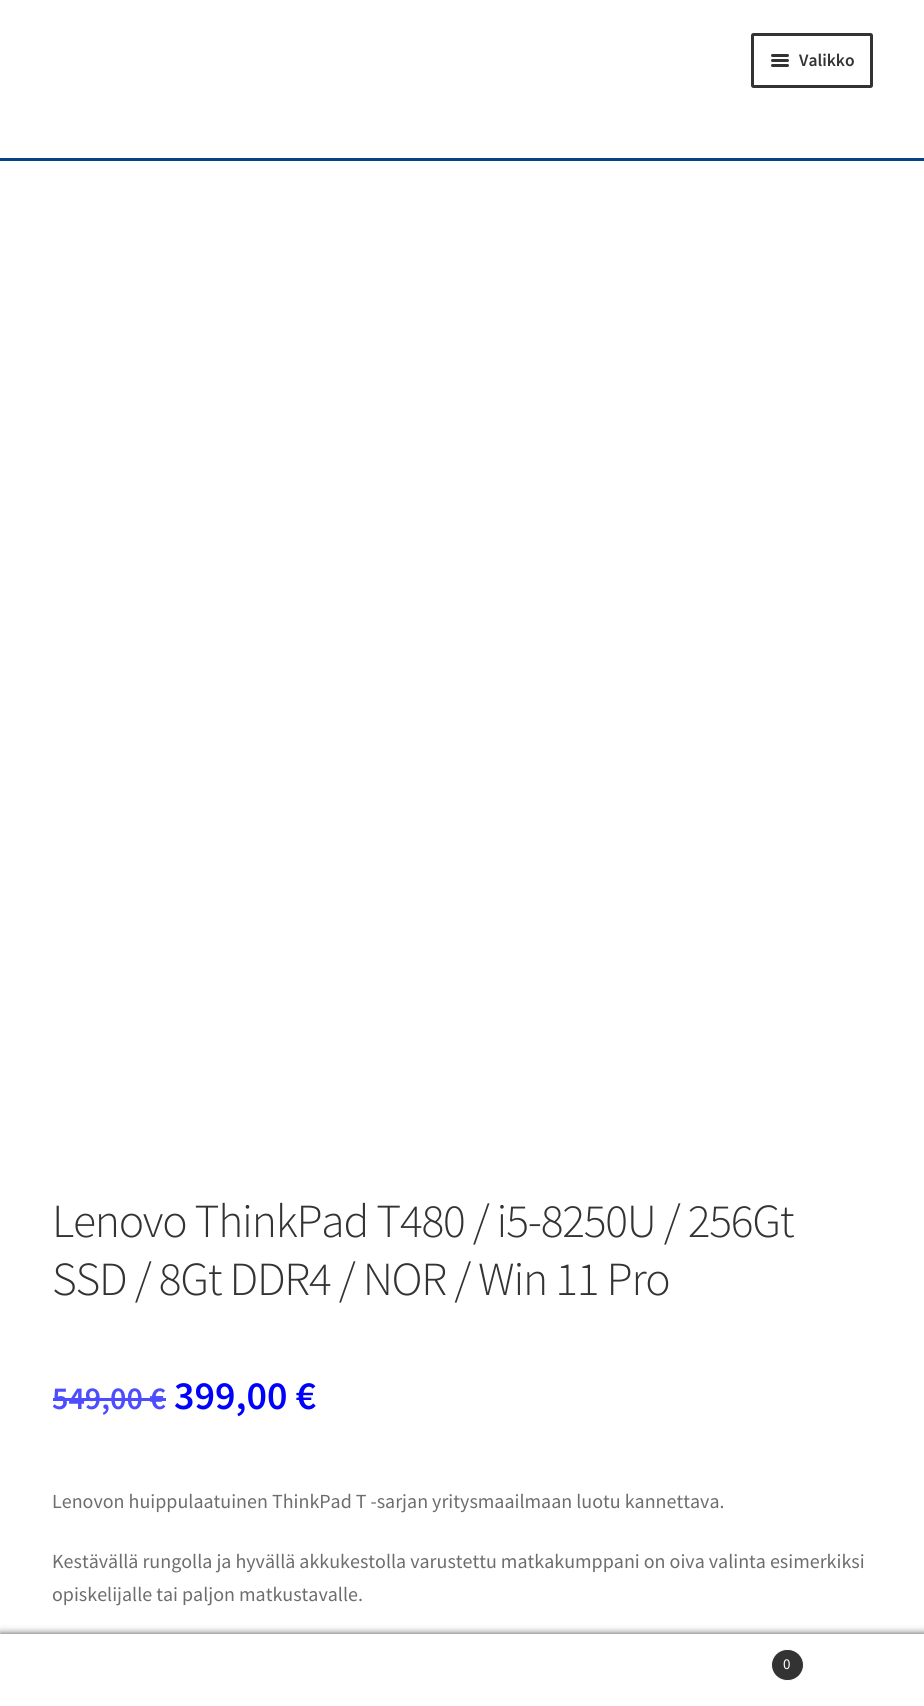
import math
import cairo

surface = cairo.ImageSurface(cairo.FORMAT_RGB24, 924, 1706)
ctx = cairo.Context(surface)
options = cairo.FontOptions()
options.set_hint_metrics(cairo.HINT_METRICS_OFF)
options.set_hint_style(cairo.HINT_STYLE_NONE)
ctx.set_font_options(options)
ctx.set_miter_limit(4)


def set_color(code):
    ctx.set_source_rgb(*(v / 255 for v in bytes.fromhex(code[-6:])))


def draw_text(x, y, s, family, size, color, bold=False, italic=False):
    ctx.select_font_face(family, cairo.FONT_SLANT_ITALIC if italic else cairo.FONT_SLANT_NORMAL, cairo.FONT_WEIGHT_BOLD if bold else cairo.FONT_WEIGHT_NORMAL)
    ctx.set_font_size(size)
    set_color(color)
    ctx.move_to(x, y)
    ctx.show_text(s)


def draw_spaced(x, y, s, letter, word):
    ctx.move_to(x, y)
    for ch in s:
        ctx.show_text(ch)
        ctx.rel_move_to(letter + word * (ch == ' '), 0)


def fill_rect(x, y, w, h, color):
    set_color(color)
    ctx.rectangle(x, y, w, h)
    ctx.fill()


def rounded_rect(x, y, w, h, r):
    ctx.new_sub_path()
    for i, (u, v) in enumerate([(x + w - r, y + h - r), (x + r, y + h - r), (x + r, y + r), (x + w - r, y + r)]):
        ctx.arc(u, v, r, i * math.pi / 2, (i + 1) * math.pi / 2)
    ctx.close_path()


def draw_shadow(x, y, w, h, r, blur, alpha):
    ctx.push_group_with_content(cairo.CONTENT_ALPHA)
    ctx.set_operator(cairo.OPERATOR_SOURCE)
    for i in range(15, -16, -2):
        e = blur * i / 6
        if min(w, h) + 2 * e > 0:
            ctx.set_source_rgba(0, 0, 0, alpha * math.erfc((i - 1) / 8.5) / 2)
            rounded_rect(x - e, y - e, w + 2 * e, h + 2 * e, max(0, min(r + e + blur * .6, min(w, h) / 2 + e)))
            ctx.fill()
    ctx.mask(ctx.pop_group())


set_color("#ffffff")
ctx.paint()
fill_rect(0, 158, 924, 3, "#064387")
rounded_rect(752.5, 34.5, 119, 52, 1)
set_color("#333333")
ctx.set_line_width(3)
ctx.stroke()
rounded_rect(771, 54, 18, 3, 1.5)
ctx.fill()
rounded_rect(771, 59, 18, 3, 1.5)
ctx.fill()
draw_text(799, 66, "Valikko", "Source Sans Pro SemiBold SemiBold", 17.5, "#333333")
rounded_rect(771, 64, 18, 3, 1.5)
ctx.fill()
ctx.select_font_face("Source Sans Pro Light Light")
ctx.set_font_size(47.5)
draw_spaced(52, 1237, "Lenovo ThinkPad T480 / i5-8250U / 256Gt", -1.25, 0)
draw_spaced(52, 1295, "SSD / 8Gt DDR4 / NOR / Win 11 Pro", -1.25, 0)
draw_text(52, 1409, "549,00 €", "Source Sans Pro SemiBold SemiBold", 32, "#4d4dff")
fill_rect(53, 1398, 113, 3, "#4d4dff")
draw_text(174, 1409, "399,00 €", "Source Sans Pro SemiBold SemiBold", 40, "#0000ff")
draw_text(52, 1508, "Lenovon huippulaatuinen ThinkPad T -sarjan yritysmaailmaan luotu kannettava.", "Source Sans Pro", 20, "#6d6d6d")
draw_text(52, 1568, "Kestävällä rungolla ja hyvällä akkukestolla varustettu matkakumppani on oiva valinta esimerkiksi", "Source Sans Pro", 20, "#6d6d6d")
draw_text(52, 1601, "opiskelijalle tai paljon matkustavalle.", "Source Sans Pro", 20, "#6d6d6d")
set_color("#000000")
draw_shadow(0, 1634, 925, 62, 0, 4, 0.7)
fill_rect(0, 1634, 924, 1, "#ffffff")
fill_rect(0, 1635, 924, 70, "#ffffff")
set_color("#333333")
rounded_rect(771.5, 1649.5, 32, 31, 15.5)
ctx.fill_preserve()
set_color("#ffffff")
ctx.set_line_width(1)
ctx.stroke()
draw_text(783, 1669, "0", "Source Sans Pro", 15, "#ffffff")
surface.write_to_png("output.png")
